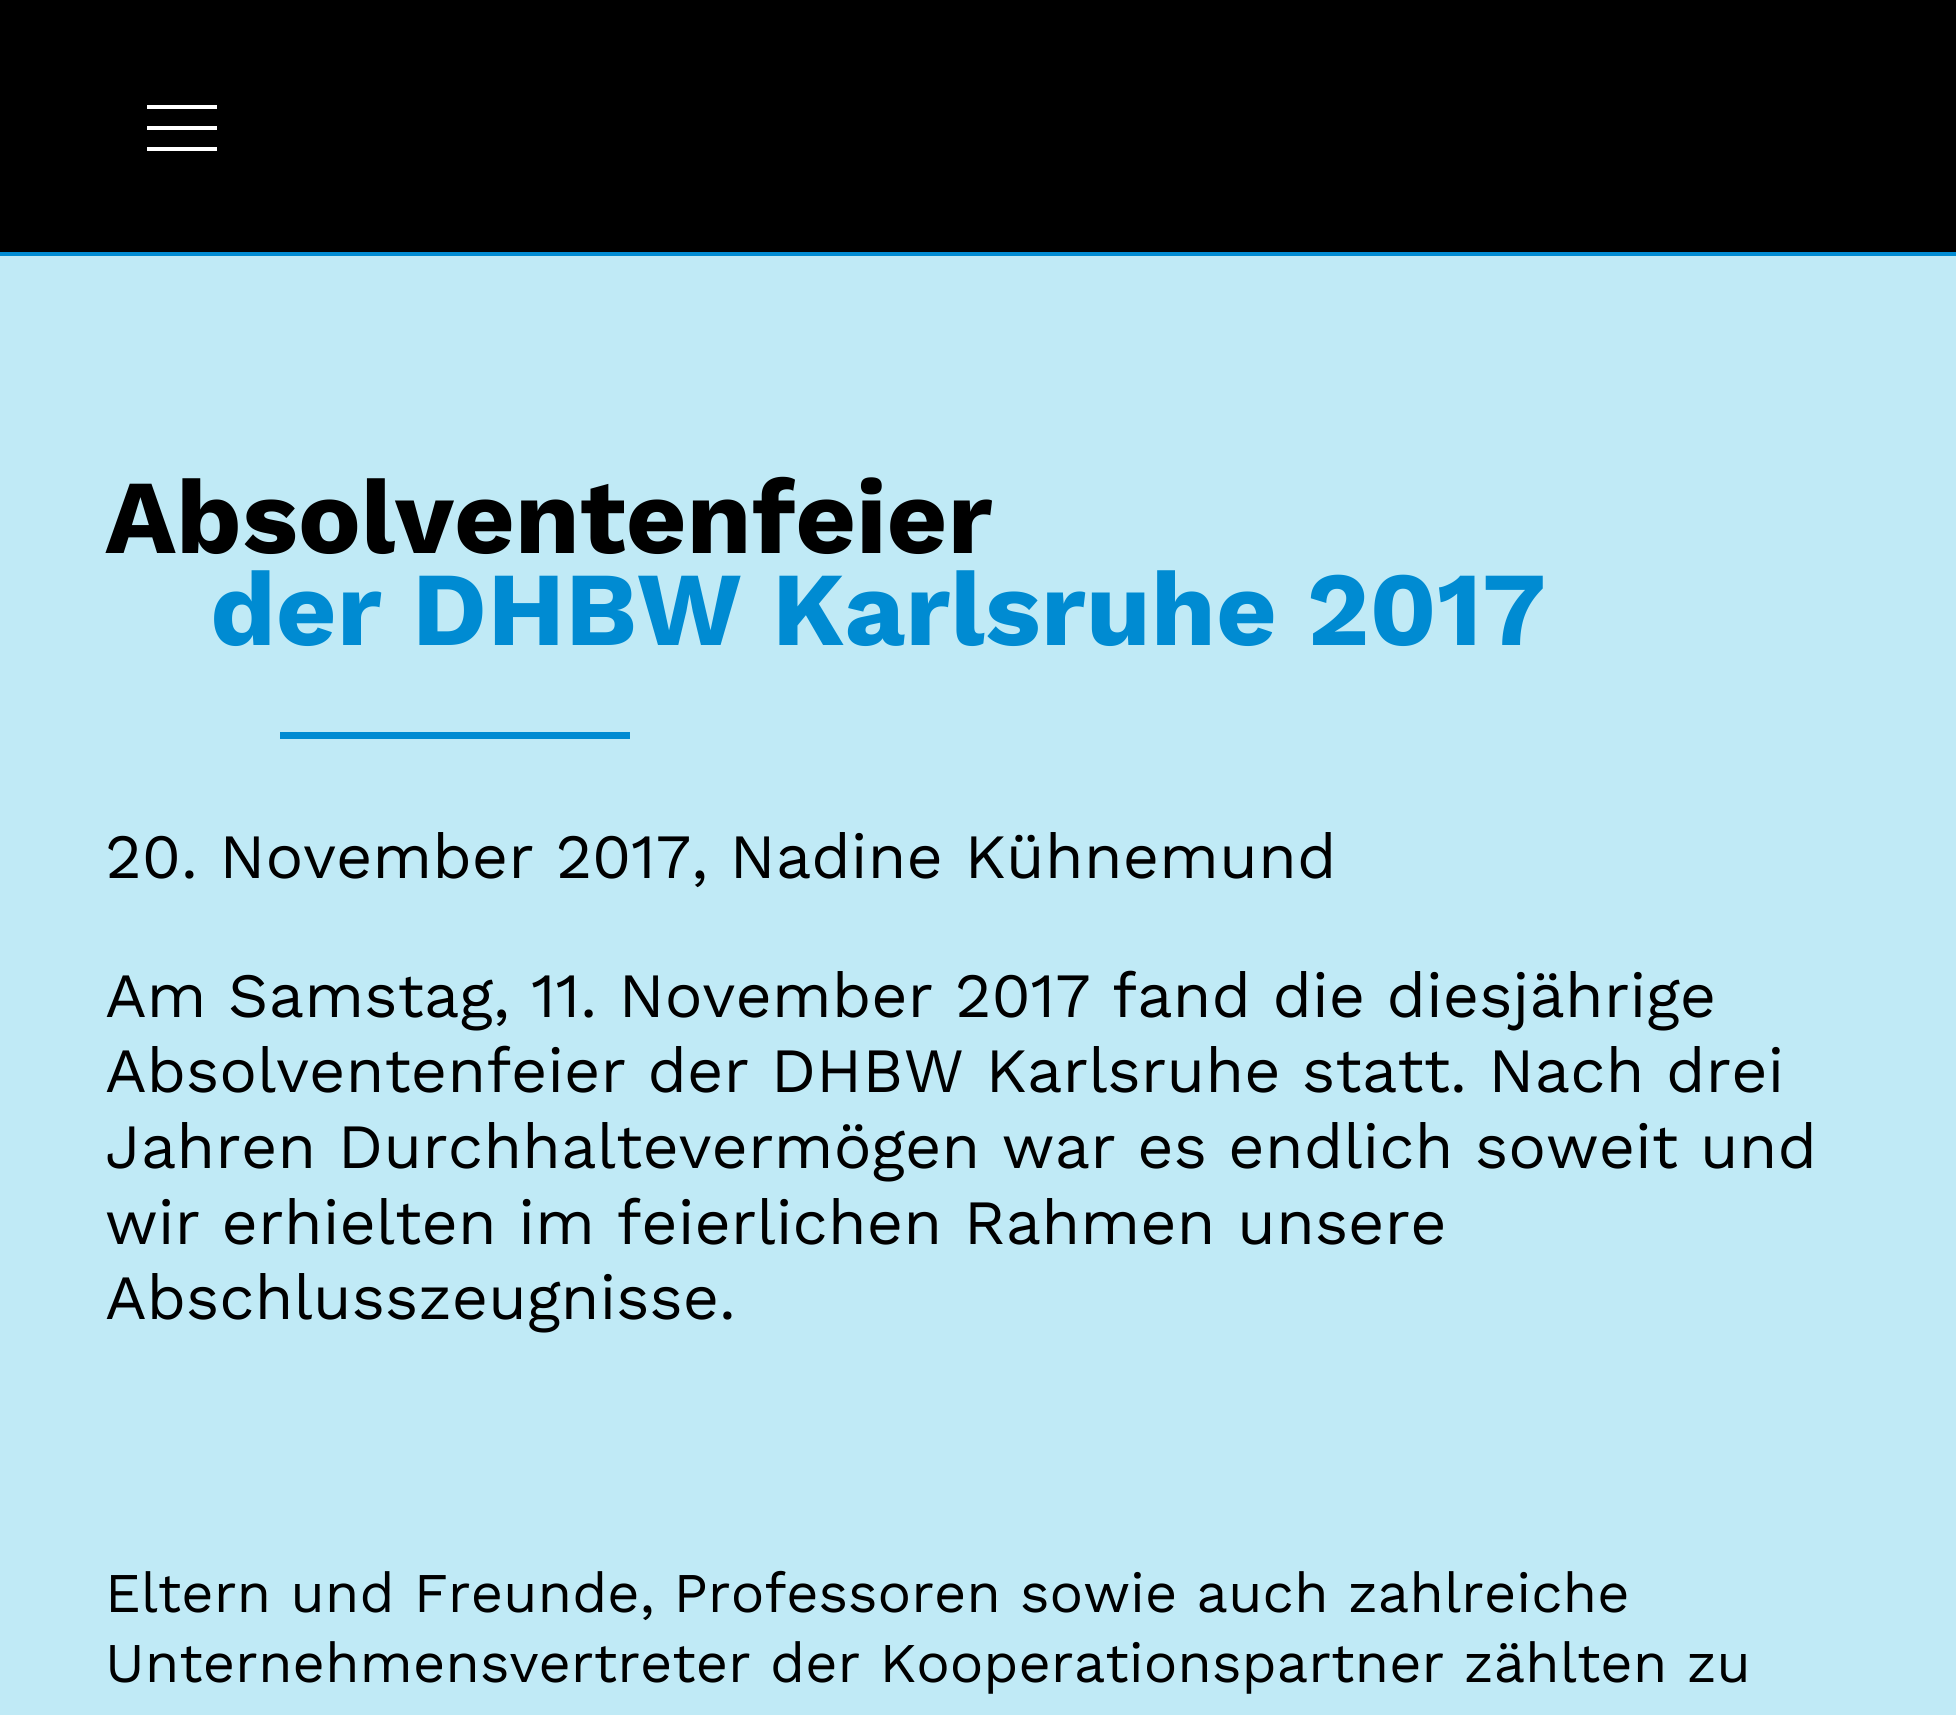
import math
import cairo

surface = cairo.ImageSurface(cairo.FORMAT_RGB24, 1956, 1715)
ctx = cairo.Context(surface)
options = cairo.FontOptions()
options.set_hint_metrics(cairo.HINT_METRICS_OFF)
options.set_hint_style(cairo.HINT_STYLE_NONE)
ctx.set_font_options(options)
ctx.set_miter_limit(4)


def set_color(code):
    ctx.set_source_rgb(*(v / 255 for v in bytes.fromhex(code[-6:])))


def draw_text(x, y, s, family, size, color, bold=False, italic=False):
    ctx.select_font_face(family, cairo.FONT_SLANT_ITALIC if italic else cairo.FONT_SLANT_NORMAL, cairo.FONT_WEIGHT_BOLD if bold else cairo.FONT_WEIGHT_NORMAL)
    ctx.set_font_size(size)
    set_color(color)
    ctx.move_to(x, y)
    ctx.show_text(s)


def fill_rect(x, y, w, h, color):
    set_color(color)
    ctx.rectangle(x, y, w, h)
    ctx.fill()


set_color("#c0eaf6")
ctx.paint()
fill_rect(0, 0, 1956, 252, "#000000")
fill_rect(0, 252, 1956, 4, "#008bd2")
fill_rect(147, 105, 70, 4, "#ffffff")
fill_rect(147, 126, 70, 4, "#ffffff")
fill_rect(147, 147, 70, 4, "#ffffff")
draw_text(105, 553, "Absolventenfeier", "Work Sans", 105, "#000000", bold=True)
draw_text(210, 645, "der DHBW Karlsruhe 2017", "Work Sans", 105, "#008bd2", bold=True)
fill_rect(280, 732, 350, 7, "#008bd2")
draw_text(105, 878, "20. November 2017, Nadine Kühnemund", "Work Sans", 63, "#000000")
draw_text(105, 1017, "Am Samstag, 11. November 2017 fand die diesjährige", "Work Sans", 63, "#000000")
draw_text(105, 1092, "Absolventenfeier der DHBW Karlsruhe statt. Nach drei", "Work Sans", 63, "#000000")
draw_text(105, 1168, "Jahren Durchhaltevermögen war es endlich soweit und", "Work Sans", 63, "#000000")
draw_text(105, 1244, "wir erhielten im feierlichen Rahmen unsere", "Work Sans", 63, "#000000")
draw_text(105, 1319, "Abschlusszeugnisse.", "Work Sans", 63, "#000000")
draw_text(105, 1612, "Eltern und Freunde, Professoren sowie auch zahlreiche", "Work Sans", 56, "#000000")
draw_text(105, 1682, "Unternehmensvertreter der Kooperationspartner zählten zu", "Work Sans", 56, "#000000")
surface.write_to_png("output.png")
